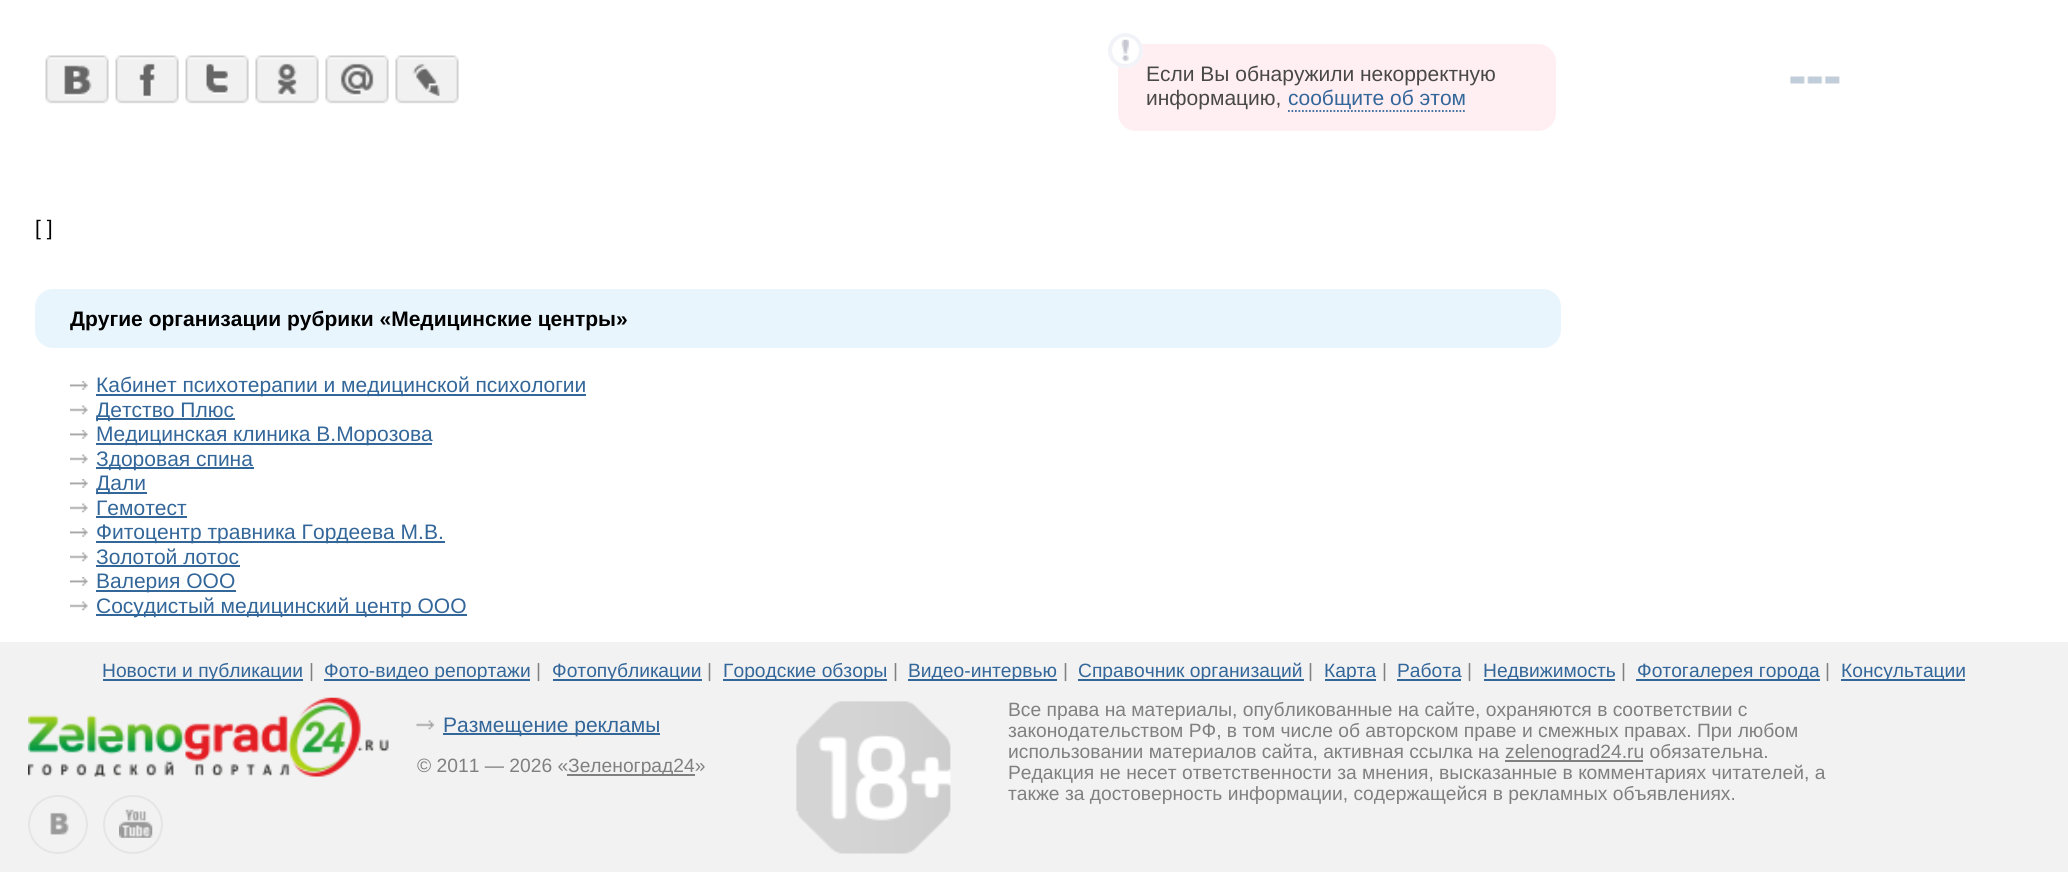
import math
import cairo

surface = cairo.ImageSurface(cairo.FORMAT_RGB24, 2068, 872)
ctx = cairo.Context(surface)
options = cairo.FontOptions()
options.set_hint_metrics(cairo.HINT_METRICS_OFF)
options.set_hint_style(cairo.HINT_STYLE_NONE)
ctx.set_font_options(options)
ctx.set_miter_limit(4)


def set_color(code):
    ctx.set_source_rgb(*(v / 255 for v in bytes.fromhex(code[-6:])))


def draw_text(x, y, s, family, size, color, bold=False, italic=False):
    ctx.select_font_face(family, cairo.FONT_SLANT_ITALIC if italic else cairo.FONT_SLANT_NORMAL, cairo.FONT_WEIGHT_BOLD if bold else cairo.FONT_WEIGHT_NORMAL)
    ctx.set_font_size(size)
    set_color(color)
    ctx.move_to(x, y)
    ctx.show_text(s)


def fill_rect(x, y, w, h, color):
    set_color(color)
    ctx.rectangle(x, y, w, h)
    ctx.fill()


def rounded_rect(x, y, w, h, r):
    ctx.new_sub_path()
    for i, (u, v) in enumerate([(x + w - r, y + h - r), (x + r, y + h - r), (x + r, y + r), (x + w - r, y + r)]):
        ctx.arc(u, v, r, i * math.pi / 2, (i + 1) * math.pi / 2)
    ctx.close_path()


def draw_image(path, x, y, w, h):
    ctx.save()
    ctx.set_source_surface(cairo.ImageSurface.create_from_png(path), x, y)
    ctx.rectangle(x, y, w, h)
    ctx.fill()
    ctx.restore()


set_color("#ffffff")
ctx.paint()
draw_image("assets/img1.png", 45, 55, 64, 49)
draw_image("assets/img2.png", 115, 55, 64, 49)
draw_image("assets/img3.png", 185, 55, 64, 49)
draw_image("assets/img4.png", 255, 55, 64, 49)
draw_image("assets/img5.png", 325, 55, 64, 49)
draw_image("assets/img6.png", 395, 55, 64, 49)
set_color("#ffeff3")
rounded_rect(1118, 44, 438, 87, 18)
ctx.fill()
set_color("#ffffff")
ctx.arc(1125.5, 50.5, 17.5, 0, 2 * math.pi)
ctx.fill()
draw_image("assets/img7.png", 1121, 39, 8, 22)
ctx.arc(1125.5, 50.5, 15.5, 0, 2 * math.pi)
set_color("#f2f3f8")
ctx.set_line_width(4)
ctx.stroke()
draw_text(1146, 81, "Если Вы обнаружили некорректную", "Liberation Sans", 21, "#494848")
draw_text(1146, 105, "информацию,", "Liberation Sans", 21, "#494848")
draw_text(1288, 105, "сообщите об этом", "Liberation Sans", 21, "#336699")
ctx.new_path()
ctx.move_to(1288, 111)
ctx.line_to(1465, 111)
ctx.set_line_width(1.8)
ctx.set_dash([1.75, 1.75])
ctx.stroke()
draw_text(35, 235, "[ ]", "Liberation Sans", 21, "#000000")
set_color("#e9f5fd")
rounded_rect(44, 298, 1508, 41, 9)
ctx.fill_preserve()
ctx.set_line_width(18)
ctx.set_dash([])
ctx.stroke()
draw_text(70, 326, "Другие организации рубрики «Медицинские центры»", "Liberation Sans", 21, "#000000", bold=True)
draw_image("assets/img8.png", 70, 381, 18, 9)
fill_rect(96, 394, 490, 2, "#336699")
draw_text(96, 392, "Кабинет психотерапии и медицинской психологии", "Liberation Sans", 21, "#336699")
draw_image("assets/img9.png", 70, 405, 18, 10)
fill_rect(96, 418, 139, 2, "#336699")
draw_text(96, 417, "Детство Плюс", "Liberation Sans", 21, "#336699")
draw_image("assets/img8.png", 70, 430, 18, 9)
fill_rect(96, 443, 336, 2, "#336699")
draw_text(96, 441, "Медицинская клиника В.Морозова", "Liberation Sans", 21, "#336699")
draw_image("assets/img9.png", 70, 454, 18, 10)
fill_rect(96, 467, 158, 2, "#336699")
draw_text(96, 466, "Здоровая спина", "Liberation Sans", 21, "#336699")
draw_image("assets/img8.png", 70, 479, 18, 9)
fill_rect(96, 492, 51, 2, "#336699")
draw_text(96, 490, "Дали", "Liberation Sans", 21, "#336699")
draw_image("assets/img9.png", 70, 503, 18, 10)
draw_text(96, 515, "Гемотест", "Liberation Sans", 21, "#336699")
fill_rect(96, 516, 91, 2, "#336699")
draw_image("assets/img8.png", 70, 528, 18, 9)
fill_rect(96, 541, 349, 2, "#336699")
draw_text(96, 539, "Фитоцентр травника Гордеева М.В.", "Liberation Sans", 21, "#336699")
draw_image("assets/img9.png", 70, 552, 18, 10)
draw_text(96, 564, "Золотой лотос", "Liberation Sans", 21, "#336699")
fill_rect(96, 565, 144, 2, "#336699")
draw_image("assets/img8.png", 70, 577, 18, 9)
fill_rect(96, 590, 140, 2, "#336699")
draw_text(96, 588, "Валерия ООО", "Liberation Sans", 21, "#336699")
draw_image("assets/img9.png", 70, 601, 18, 10)
fill_rect(96, 614, 371, 2, "#336699")
draw_text(96, 613, "Сосудистый медицинский центр ООО", "Liberation Sans", 21, "#336699")
draw_image("assets/img10.png", 1790, 76, 50, 8)
fill_rect(0, 642, 2068, 230, "#f2f2f2")
fill_rect(103, 679, 200, 2, "#336699")
draw_text(102, 677, "Новости и публикации", "Liberation Sans", 19.25, "#336699")
draw_text(309, 677, "|", "Liberation Sans", 19.25, "#808080")
fill_rect(324, 679, 206, 2, "#336699")
draw_text(324, 677, "Фото-видео репортажи", "Liberation Sans", 19.25, "#336699")
draw_text(536, 677, "|", "Liberation Sans", 19.25, "#808080")
fill_rect(553, 679, 149, 2, "#336699")
draw_text(552, 677, "Фотопубликации", "Liberation Sans", 19.25, "#336699")
draw_text(707, 677, "|", "Liberation Sans", 19.25, "#808080")
fill_rect(723, 679, 164, 2, "#336699")
draw_text(723, 677, "Городские обзоры", "Liberation Sans", 19.25, "#336699")
draw_text(893, 677, "|", "Liberation Sans", 19.25, "#808080")
fill_rect(908, 679, 149, 2, "#336699")
draw_text(908, 677, "Видео-интервью", "Liberation Sans", 19.25, "#336699")
draw_text(1063, 677, "|", "Liberation Sans", 19.25, "#808080")
fill_rect(1078, 679, 226, 2, "#336699")
draw_text(1078, 677, "Справочник организаций", "Liberation Sans", 19.25, "#336699")
draw_text(1308, 677, "|", "Liberation Sans", 19.25, "#808080")
fill_rect(1325, 679, 51, 2, "#336699")
draw_text(1324, 677, "Карта", "Liberation Sans", 19.25, "#336699")
draw_text(1382, 677, "|", "Liberation Sans", 19.25, "#808080")
draw_text(1397, 677, "Работа", "Liberation Sans", 19.25, "#336699")
fill_rect(1397, 679, 64, 2, "#336699")
draw_text(1467, 677, "|", "Liberation Sans", 19.25, "#808080")
fill_rect(1484, 679, 131, 2, "#336699")
draw_text(1483, 677, "Недвижимость", "Liberation Sans", 19.25, "#336699")
draw_text(1621, 677, "|", "Liberation Sans", 19.25, "#808080")
fill_rect(1636, 679, 184, 2, "#336699")
draw_text(1637, 677, "Фотогалерея города", "Liberation Sans", 19.25, "#336699")
draw_text(1825, 677, "|", "Liberation Sans", 19.25, "#808080")
fill_rect(1841, 679, 124, 2, "#336699")
draw_text(1841, 677, "Консультации", "Liberation Sans", 19.25, "#336699")
draw_image("assets/img11.png", 28, 697, 361, 80)
rounded_rect(29, 796, 58, 57, 28.5)
set_color("#e5e5e5")
ctx.set_line_width(2)
ctx.stroke()
draw_image("assets/img12.png", 50, 812, 19, 23)
rounded_rect(104, 796, 58, 57, 28.5)
ctx.stroke()
draw_image("assets/img13.png", 119, 809, 34, 29)
draw_image("assets/img14.png", 416, 720, 18, 10)
fill_rect(443, 733, 217, 2, "#336699")
draw_text(443, 732, "Размещение рекламы", "Liberation Sans", 21, "#336699")
draw_text(417, 772, "© 2011 — 2026 «", "Liberation Sans", 19.25, "#808080")
fill_rect(567, 774, 128, 2, "#808080")
draw_text(568, 772, "Зеленоград24»", "Liberation Sans", 19.25, "#808080")
draw_image("assets/img15.png", 796, 701, 155, 153)
draw_text(1008, 716, "Все права на материалы, опубликованные на сайте, охраняются в соответствии с", "Liberation Sans", 19.25, "#808080")
draw_text(1008, 737, "законодательством РФ, в том числе об авторском праве и смежных правах. При любом", "Liberation Sans", 19.25, "#808080")
draw_text(1008, 758, "использовании материалов сайта, активная ссылка на", "Liberation Sans", 19.25, "#808080")
fill_rect(1505, 760, 138, 2, "#808080")
draw_text(1505, 758, "zelenograd24.ru обязательна.", "Liberation Sans", 19.25, "#808080")
draw_text(1008, 779, "Редакция не несет ответственности за мнения, высказанные в комментариях читателей, а", "Liberation Sans", 19.25, "#808080")
draw_text(1008, 800, "также за достоверность информации, содержащейся в рекламных объявлениях.", "Liberation Sans", 19.25, "#808080")
surface.write_to_png("output.png")
